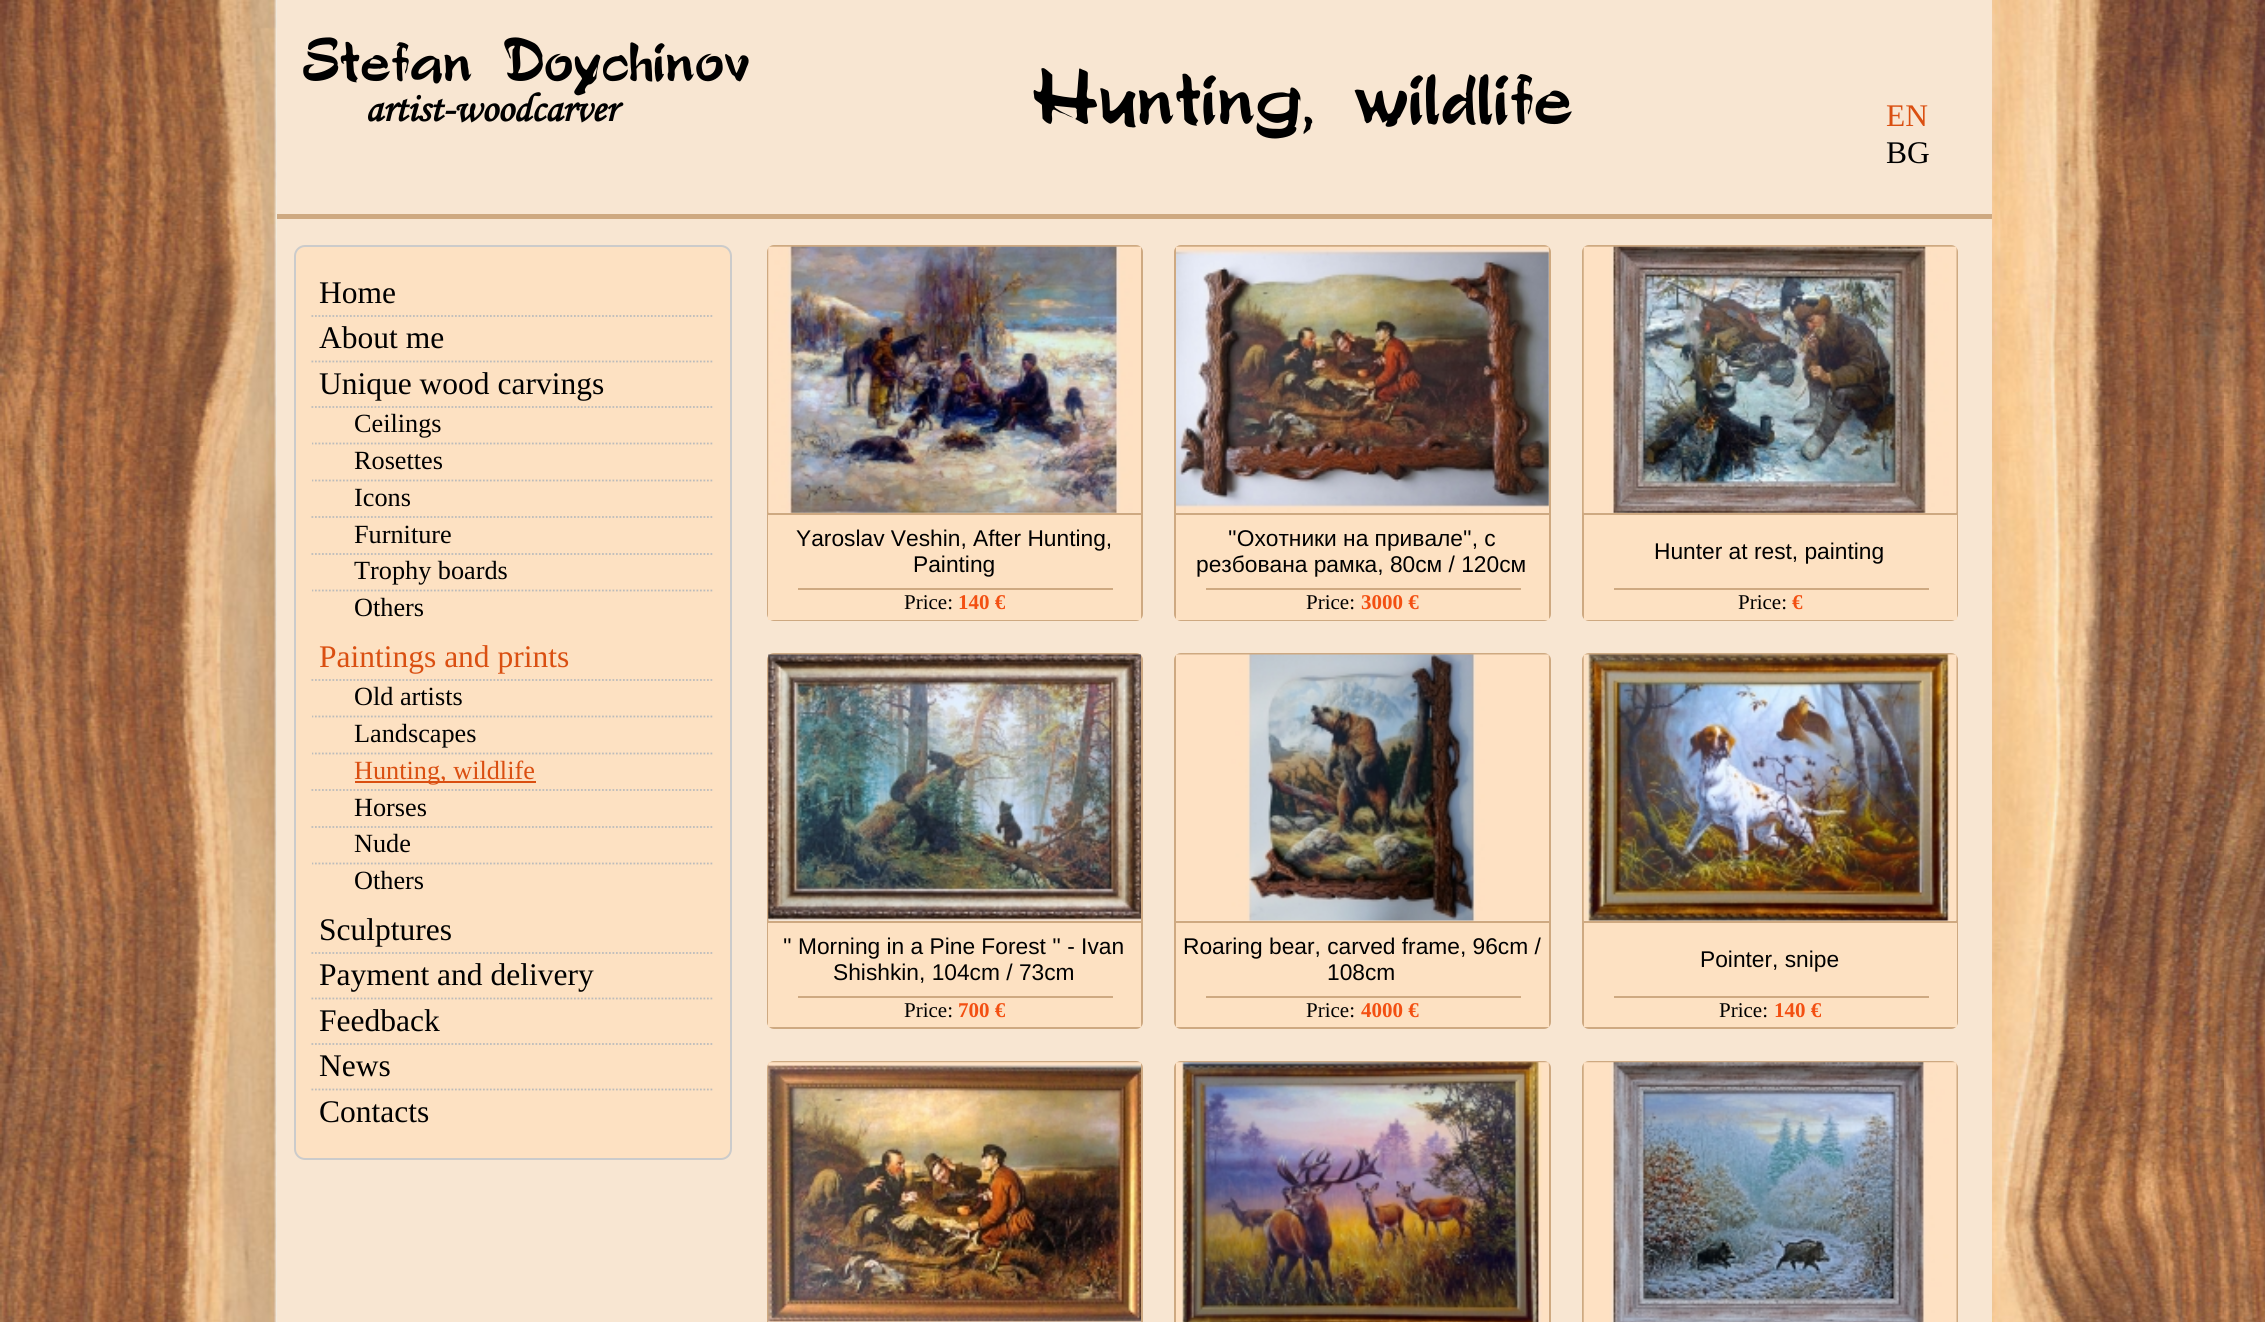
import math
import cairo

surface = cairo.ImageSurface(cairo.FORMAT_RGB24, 2265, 1322)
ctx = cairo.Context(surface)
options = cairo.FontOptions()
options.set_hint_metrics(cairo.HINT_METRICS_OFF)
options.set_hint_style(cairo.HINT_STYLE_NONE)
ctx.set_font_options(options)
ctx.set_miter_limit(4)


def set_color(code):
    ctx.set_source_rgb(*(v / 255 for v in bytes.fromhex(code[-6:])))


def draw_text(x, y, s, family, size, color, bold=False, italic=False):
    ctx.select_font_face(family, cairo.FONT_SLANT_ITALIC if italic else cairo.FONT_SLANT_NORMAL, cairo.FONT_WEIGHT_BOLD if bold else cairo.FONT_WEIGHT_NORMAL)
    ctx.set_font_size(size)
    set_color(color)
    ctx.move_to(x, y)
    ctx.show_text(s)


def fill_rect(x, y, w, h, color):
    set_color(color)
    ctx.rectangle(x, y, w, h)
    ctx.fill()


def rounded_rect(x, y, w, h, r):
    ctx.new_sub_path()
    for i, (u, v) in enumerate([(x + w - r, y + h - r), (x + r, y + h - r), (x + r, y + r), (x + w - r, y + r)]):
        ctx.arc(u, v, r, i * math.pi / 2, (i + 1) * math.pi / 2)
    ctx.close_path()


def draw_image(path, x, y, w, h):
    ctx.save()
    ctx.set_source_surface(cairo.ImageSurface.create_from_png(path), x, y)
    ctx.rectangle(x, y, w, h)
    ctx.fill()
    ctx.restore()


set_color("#ffffff")
ctx.paint()
draw_image("assets/img1.png", 0, 0, 2265, 1322)
fill_rect(277, 0, 1715, 1322, "#f8e6d2")
fill_rect(277, 214, 1715, 5, "#cea981")
draw_text(302, 81, "Stefan Doychinov", "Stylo", 61.25, "#000000", bold=True)
draw_text(365, 121, "artist-woodcarver", "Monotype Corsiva", 40.25, "#000000", bold=True, italic=True)
draw_text(1032, 124, "Hunting, wildlife", "Stylo", 78.75, "#000000", bold=True)
draw_text(1886, 126, "EN", "Liberation Serif", 31.5, "#da4f11")
draw_text(1886, 163, "BG", "Liberation Serif", 31.5, "#000000")
set_color("#fde1c2")
rounded_rect(295, 246, 436, 913, 10)
ctx.fill_preserve()
set_color("#cbcbcb")
ctx.stroke()
ctx.new_path()
ctx.move_to(311.5, 316)
ctx.line_to(714, 316)
set_color("#bbbbbb")
ctx.set_line_width(1.8)
ctx.set_dash([1.75, 1.75])
ctx.stroke()
draw_text(319, 303, "Home", "Liberation Serif", 31.5, "#000000")
ctx.new_path()
ctx.move_to(311.5, 361.5)
ctx.line_to(714, 361.5)
set_color("#bbbbbb")
ctx.stroke()
draw_text(319, 348, "About me", "Liberation Serif", 31.5, "#000000")
ctx.new_path()
ctx.move_to(311.5, 407)
ctx.line_to(714, 407)
set_color("#bbbbbb")
ctx.stroke()
draw_text(319, 394, "Unique wood carvings", "Liberation Serif", 31.5, "#000000")
ctx.save()
ctx.rectangle(312, 408, 402, 227)
ctx.clip()
ctx.new_path()
ctx.move_to(311.5, 443.5)
ctx.line_to(714, 443.5)
set_color("#bbbbbb")
ctx.stroke()
ctx.restore()
draw_text(354, 432, "Ceilings", "Liberation Serif", 26.25, "#000000")
ctx.save()
ctx.rectangle(312, 408, 402, 227)
ctx.clip()
ctx.new_path()
ctx.move_to(311.5, 480.5)
ctx.line_to(714, 480.5)
set_color("#bbbbbb")
ctx.stroke()
ctx.restore()
draw_text(354, 469, "Rosettes", "Liberation Serif", 26.25, "#000000")
ctx.new_path()
ctx.move_to(311.5, 517)
ctx.line_to(714, 517)
set_color("#bbbbbb")
ctx.stroke()
draw_text(354, 506, "Icons", "Liberation Serif", 26.25, "#000000")
ctx.new_path()
ctx.move_to(311.5, 554)
ctx.line_to(714, 554)
set_color("#bbbbbb")
ctx.stroke()
draw_text(354, 543, "Furniture", "Liberation Serif", 26.25, "#000000")
ctx.save()
ctx.rectangle(312, 408, 402, 227)
ctx.clip()
ctx.new_path()
ctx.move_to(311.5, 590.5)
ctx.line_to(714, 590.5)
set_color("#bbbbbb")
ctx.stroke()
ctx.restore()
draw_text(354, 579, "Trophy boards", "Liberation Serif", 26.25, "#000000")
draw_text(354, 616, "Others", "Liberation Serif", 26.25, "#000000")
ctx.new_path()
ctx.move_to(311.5, 680)
ctx.line_to(714, 680)
set_color("#bbbbbb")
ctx.stroke()
draw_text(319, 667, "Paintings and prints", "Liberation Serif", 31.5, "#da4f11")
ctx.save()
ctx.rectangle(312, 681, 402, 227)
ctx.clip()
ctx.new_path()
ctx.move_to(311.5, 716.5)
ctx.line_to(714, 716.5)
set_color("#bbbbbb")
ctx.stroke()
ctx.restore()
draw_text(354, 705, "Old artists", "Liberation Serif", 26.25, "#000000")
ctx.save()
ctx.rectangle(312, 681, 402, 227)
ctx.clip()
ctx.new_path()
ctx.move_to(311.5, 753.5)
ctx.line_to(714, 753.5)
set_color("#bbbbbb")
ctx.stroke()
ctx.restore()
draw_text(354, 742, "Landscapes", "Liberation Serif", 26.25, "#000000")
ctx.new_path()
ctx.move_to(311.5, 790)
ctx.line_to(714, 790)
set_color("#bbbbbb")
ctx.stroke()
fill_rect(355, 781, 181, 2, "#da4f11")
draw_text(354, 779, "Hunting, wildlife", "Liberation Serif", 26.25, "#da4f11")
ctx.new_path()
ctx.move_to(311.5, 827)
ctx.line_to(714, 827)
set_color("#bbbbbb")
ctx.stroke()
draw_text(354, 816, "Horses", "Liberation Serif", 26.25, "#000000")
ctx.save()
ctx.rectangle(312, 681, 402, 227)
ctx.clip()
ctx.new_path()
ctx.move_to(311.5, 863.5)
ctx.line_to(714, 863.5)
set_color("#bbbbbb")
ctx.stroke()
ctx.restore()
draw_text(354, 852, "Nude", "Liberation Serif", 26.25, "#000000")
draw_text(354, 889, "Others", "Liberation Serif", 26.25, "#000000")
ctx.new_path()
ctx.move_to(311.5, 953)
ctx.line_to(714, 953)
set_color("#bbbbbb")
ctx.stroke()
draw_text(319, 940, "Sculptures", "Liberation Serif", 31.5, "#000000")
ctx.new_path()
ctx.move_to(311.5, 998.5)
ctx.line_to(714, 998.5)
set_color("#bbbbbb")
ctx.stroke()
draw_text(319, 985, "Payment and delivery", "Liberation Serif", 31.5, "#000000")
ctx.new_path()
ctx.move_to(311.5, 1044)
ctx.line_to(714, 1044)
set_color("#bbbbbb")
ctx.stroke()
draw_text(319, 1031, "Feedback", "Liberation Serif", 31.5, "#000000")
ctx.new_path()
ctx.move_to(311.5, 1089.5)
ctx.line_to(714, 1089.5)
set_color("#bbbbbb")
ctx.stroke()
draw_text(319, 1076, "News", "Liberation Serif", 31.5, "#000000")
draw_text(319, 1122, "Contacts", "Liberation Serif", 31.5, "#000000")
rounded_rect(768, 246, 374, 374, 6)
set_color("#cea981")
ctx.set_line_width(2)
ctx.set_dash([])
ctx.stroke()
draw_image("assets/img2.png", 768, 246, 373, 267)
fill_rect(768, 515, 373, 105, "#fde1c2")
fill_rect(768, 513, 373, 2, "#cea981")
draw_text(796, 546, "Yaroslav Veshin, After Hunting,", "Liberation Sans", 22.75, "#000000")
draw_text(913, 572, "Painting", "Liberation Sans", 22.75, "#000000")
fill_rect(798, 588, 315, 2, "#cea981")
draw_text(904, 609, "Price:", "Liberation Serif", 21, "#000000")
draw_text(958, 609, "140 €", "Liberation Serif", 21, "#f34f11", bold=True)
rounded_rect(1175, 246, 375, 374, 6)
set_color("#cea981")
ctx.stroke()
draw_image("assets/img3.png", 1176, 246, 373, 267)
fill_rect(1176, 515, 373, 105, "#fde1c2")
fill_rect(1176, 513, 373, 2, "#cea981")
draw_text(1228, 546, "''Охотники на привале'', с", "Liberation Sans", 22.75, "#000000")
draw_text(1196, 572, "резбована рамка, 80см / 120см", "Liberation Sans", 22.75, "#000000")
fill_rect(1206, 588, 315, 2, "#cea981")
draw_text(1306, 609, "Price:", "Liberation Serif", 21, "#000000")
draw_text(1361, 609, "3000 €", "Liberation Serif", 21, "#f34f11", bold=True)
rounded_rect(1583, 246, 374, 374, 6)
set_color("#cea981")
ctx.stroke()
draw_image("assets/img4.png", 1583, 246, 374, 267)
fill_rect(1584, 515, 373, 105, "#fde1c2")
fill_rect(1584, 513, 373, 2, "#cea981")
draw_text(1654, 559, "Hunter at rest, painting", "Liberation Sans", 22.75, "#000000")
fill_rect(1614, 588, 315, 2, "#cea981")
draw_text(1738, 609, "Price:", "Liberation Serif", 21, "#000000")
draw_text(1792, 609, "€", "Liberation Serif", 21, "#f34f11", bold=True)
rounded_rect(768, 654, 374, 374, 6)
set_color("#cea981")
ctx.stroke()
draw_image("assets/img5.png", 768, 654, 373, 267)
fill_rect(768, 923, 373, 104, "#fde1c2")
fill_rect(768, 921, 373, 2, "#cea981")
draw_text(783, 954, "'' Morning in a Pine Forest '' - Ivan", "Liberation Sans", 22.75, "#000000")
draw_text(833, 980, "Shishkin, 104cm / 73cm", "Liberation Sans", 22.75, "#000000")
fill_rect(798, 996, 315, 2, "#cea981")
draw_text(904, 1017, "Price:", "Liberation Serif", 21, "#000000")
draw_text(958, 1017, "700 €", "Liberation Serif", 21, "#f34f11", bold=True)
rounded_rect(1175, 654, 375, 374, 6)
set_color("#cea981")
ctx.stroke()
draw_image("assets/img6.png", 1176, 654, 373, 267)
fill_rect(1176, 923, 373, 104, "#fde1c2")
fill_rect(1176, 921, 373, 2, "#cea981")
draw_text(1183, 954, "Roaring bear, carved frame, 96cm /", "Liberation Sans", 22.75, "#000000")
draw_text(1327, 980, "108cm", "Liberation Sans", 22.75, "#000000")
fill_rect(1206, 996, 315, 2, "#cea981")
draw_text(1306, 1017, "Price:", "Liberation Serif", 21, "#000000")
draw_text(1361, 1017, "4000 €", "Liberation Serif", 21, "#f34f11", bold=True)
rounded_rect(1583, 654, 374, 374, 6)
set_color("#cea981")
ctx.stroke()
draw_image("assets/img7.png", 1583, 654, 374, 267)
fill_rect(1584, 923, 373, 104, "#fde1c2")
fill_rect(1584, 921, 373, 2, "#cea981")
draw_text(1700, 967, "Pointer, snipe", "Liberation Sans", 22.75, "#000000")
fill_rect(1614, 996, 315, 2, "#cea981")
draw_text(1719, 1017, "Price:", "Liberation Serif", 21, "#000000")
draw_text(1774, 1017, "140 €", "Liberation Serif", 21, "#f34f11", bold=True)
rounded_rect(768, 1062, 374, 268, 6)
set_color("#cea981")
ctx.stroke()
draw_image("assets/img8.png", 768, 1062, 373, 260)
rounded_rect(1175, 1062, 375, 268, 6)
ctx.stroke()
draw_image("assets/img9.png", 1176, 1062, 373, 260)
rounded_rect(1583, 1062, 374, 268, 6)
ctx.stroke()
draw_image("assets/img10.png", 1583, 1062, 374, 260)
surface.write_to_png("output.png")
